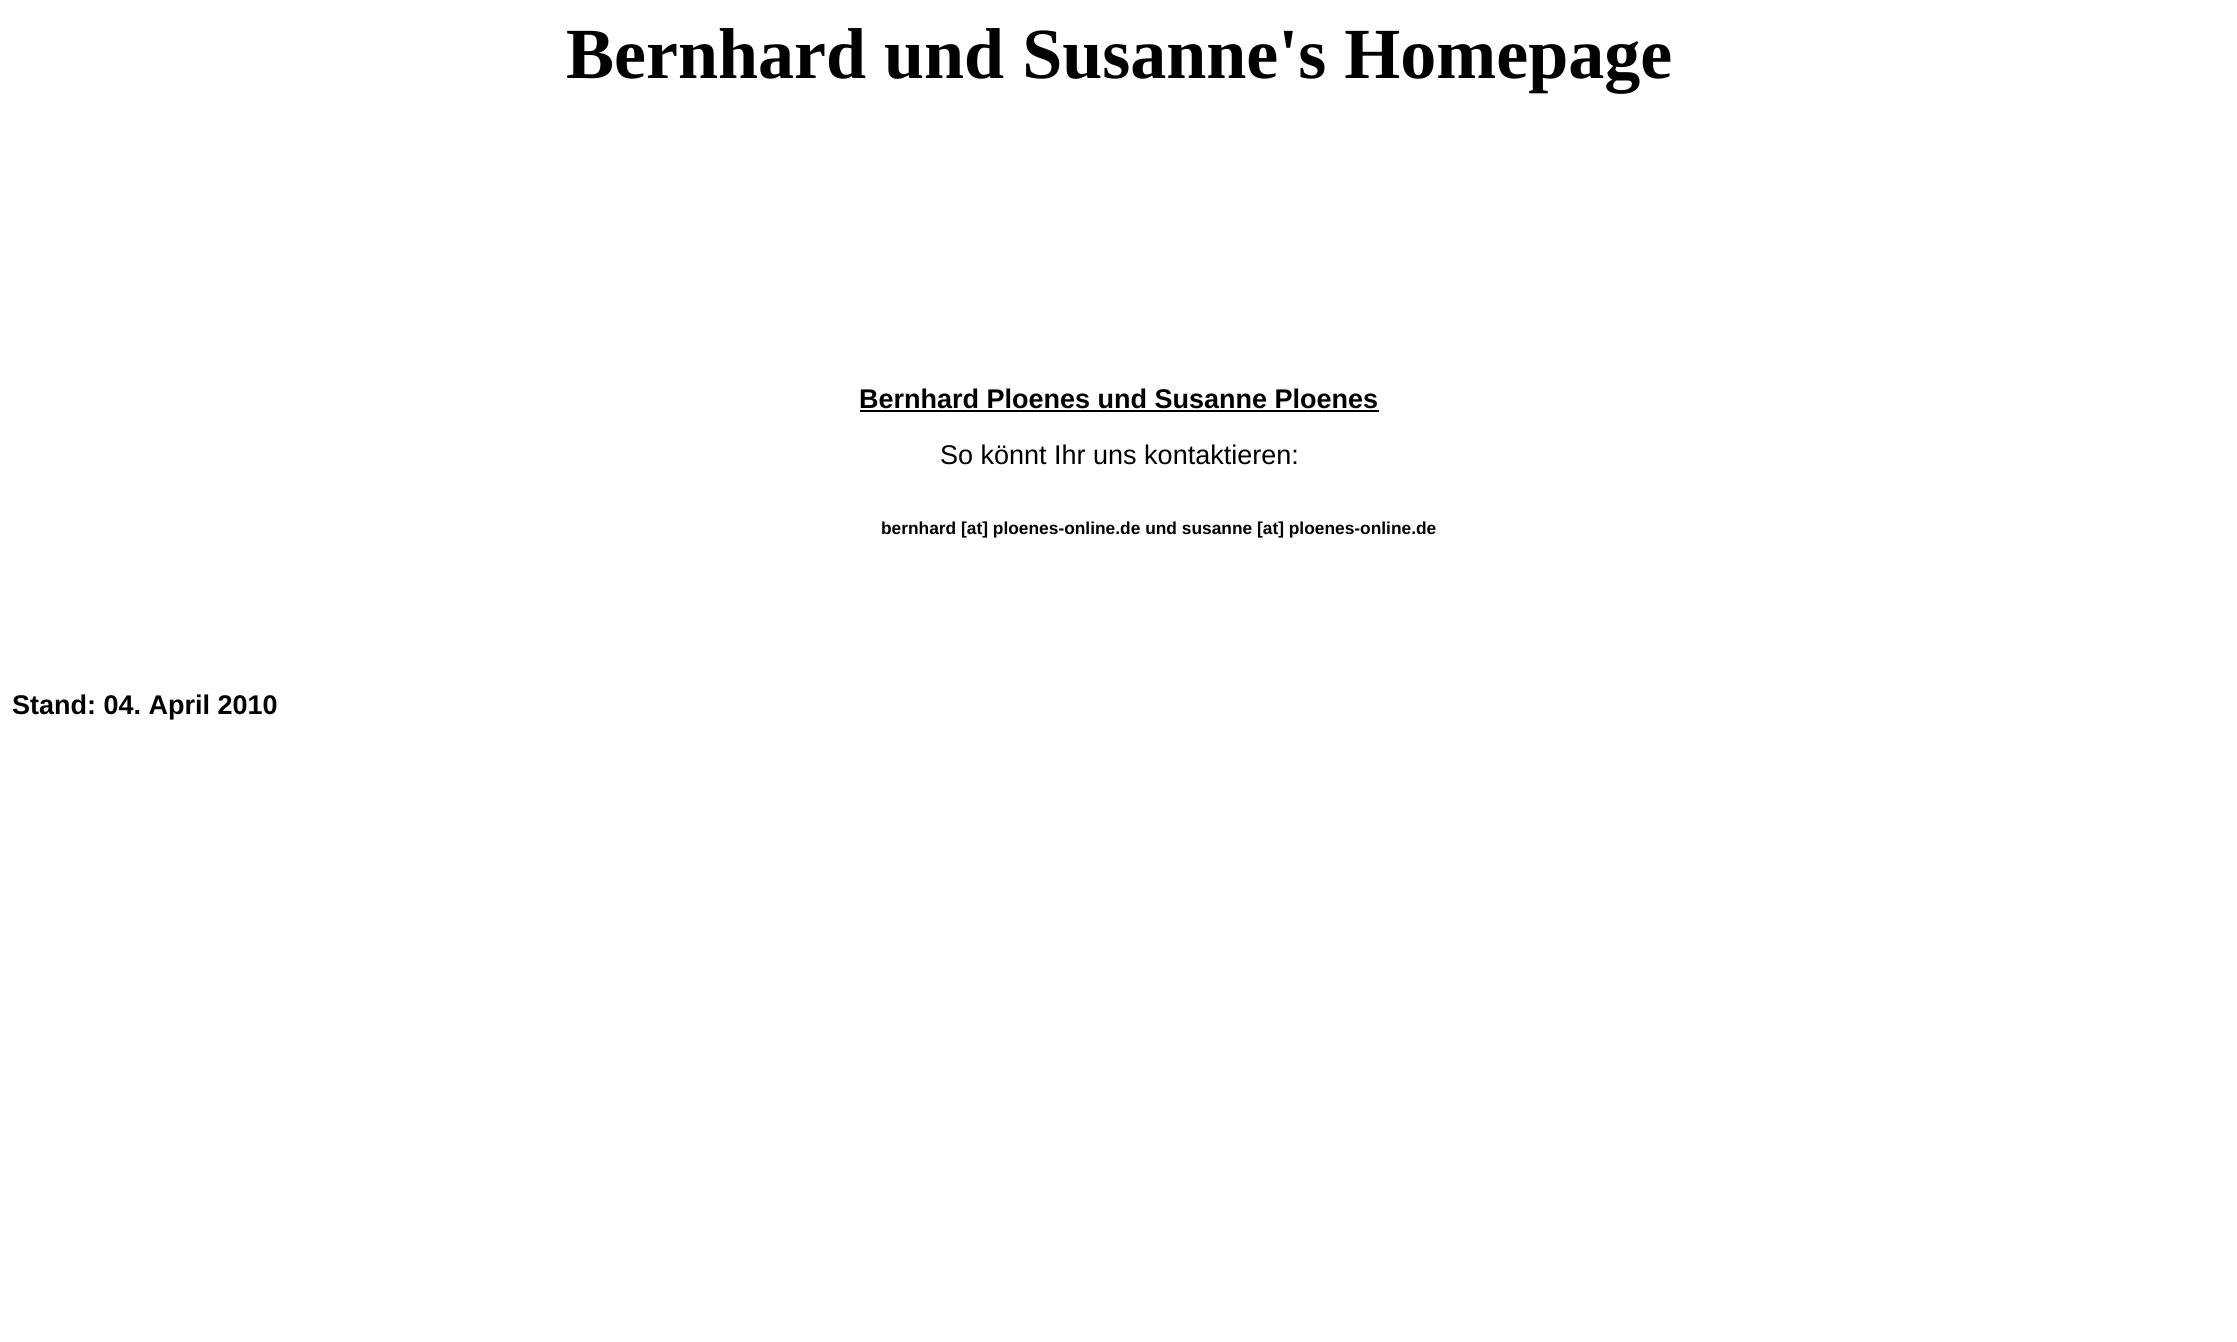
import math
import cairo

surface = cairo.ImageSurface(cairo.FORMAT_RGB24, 2237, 1342)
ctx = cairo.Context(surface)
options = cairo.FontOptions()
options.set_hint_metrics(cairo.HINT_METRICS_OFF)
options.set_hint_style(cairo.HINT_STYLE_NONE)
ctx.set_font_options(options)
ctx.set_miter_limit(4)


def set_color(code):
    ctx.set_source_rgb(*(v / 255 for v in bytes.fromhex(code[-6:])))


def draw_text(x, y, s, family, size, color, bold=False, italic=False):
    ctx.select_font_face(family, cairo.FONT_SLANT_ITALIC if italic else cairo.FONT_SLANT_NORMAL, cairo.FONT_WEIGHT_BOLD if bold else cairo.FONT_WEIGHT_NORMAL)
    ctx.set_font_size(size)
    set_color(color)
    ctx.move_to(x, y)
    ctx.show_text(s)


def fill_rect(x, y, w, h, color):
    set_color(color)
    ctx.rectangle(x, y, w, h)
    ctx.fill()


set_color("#ffffff")
ctx.paint()
draw_text(566, 78, "Bernhard und Susanne's Homepage", "Liberation Serif", 72, "#000000", bold=True)
draw_text(859, 408, "Bernhard Ploenes und Susanne Ploenes", "Liberation Sans", 27, "#000000", bold=True)
fill_rect(860, 410, 519, 2, "#000000")
draw_text(940, 464, "So könnt Ihr uns kontaktieren:", "Liberation Sans", 27, "#000000")
draw_text(881, 534, "bernhard [at] ploenes-online.de und susanne [at] ploenes-online.de", "Liberation Sans", 17.35, "#000000", bold=True)
draw_text(12, 714, "Stand: 04. April 2010", "Liberation Sans", 27, "#000000", bold=True)
surface.write_to_png("output.png")
